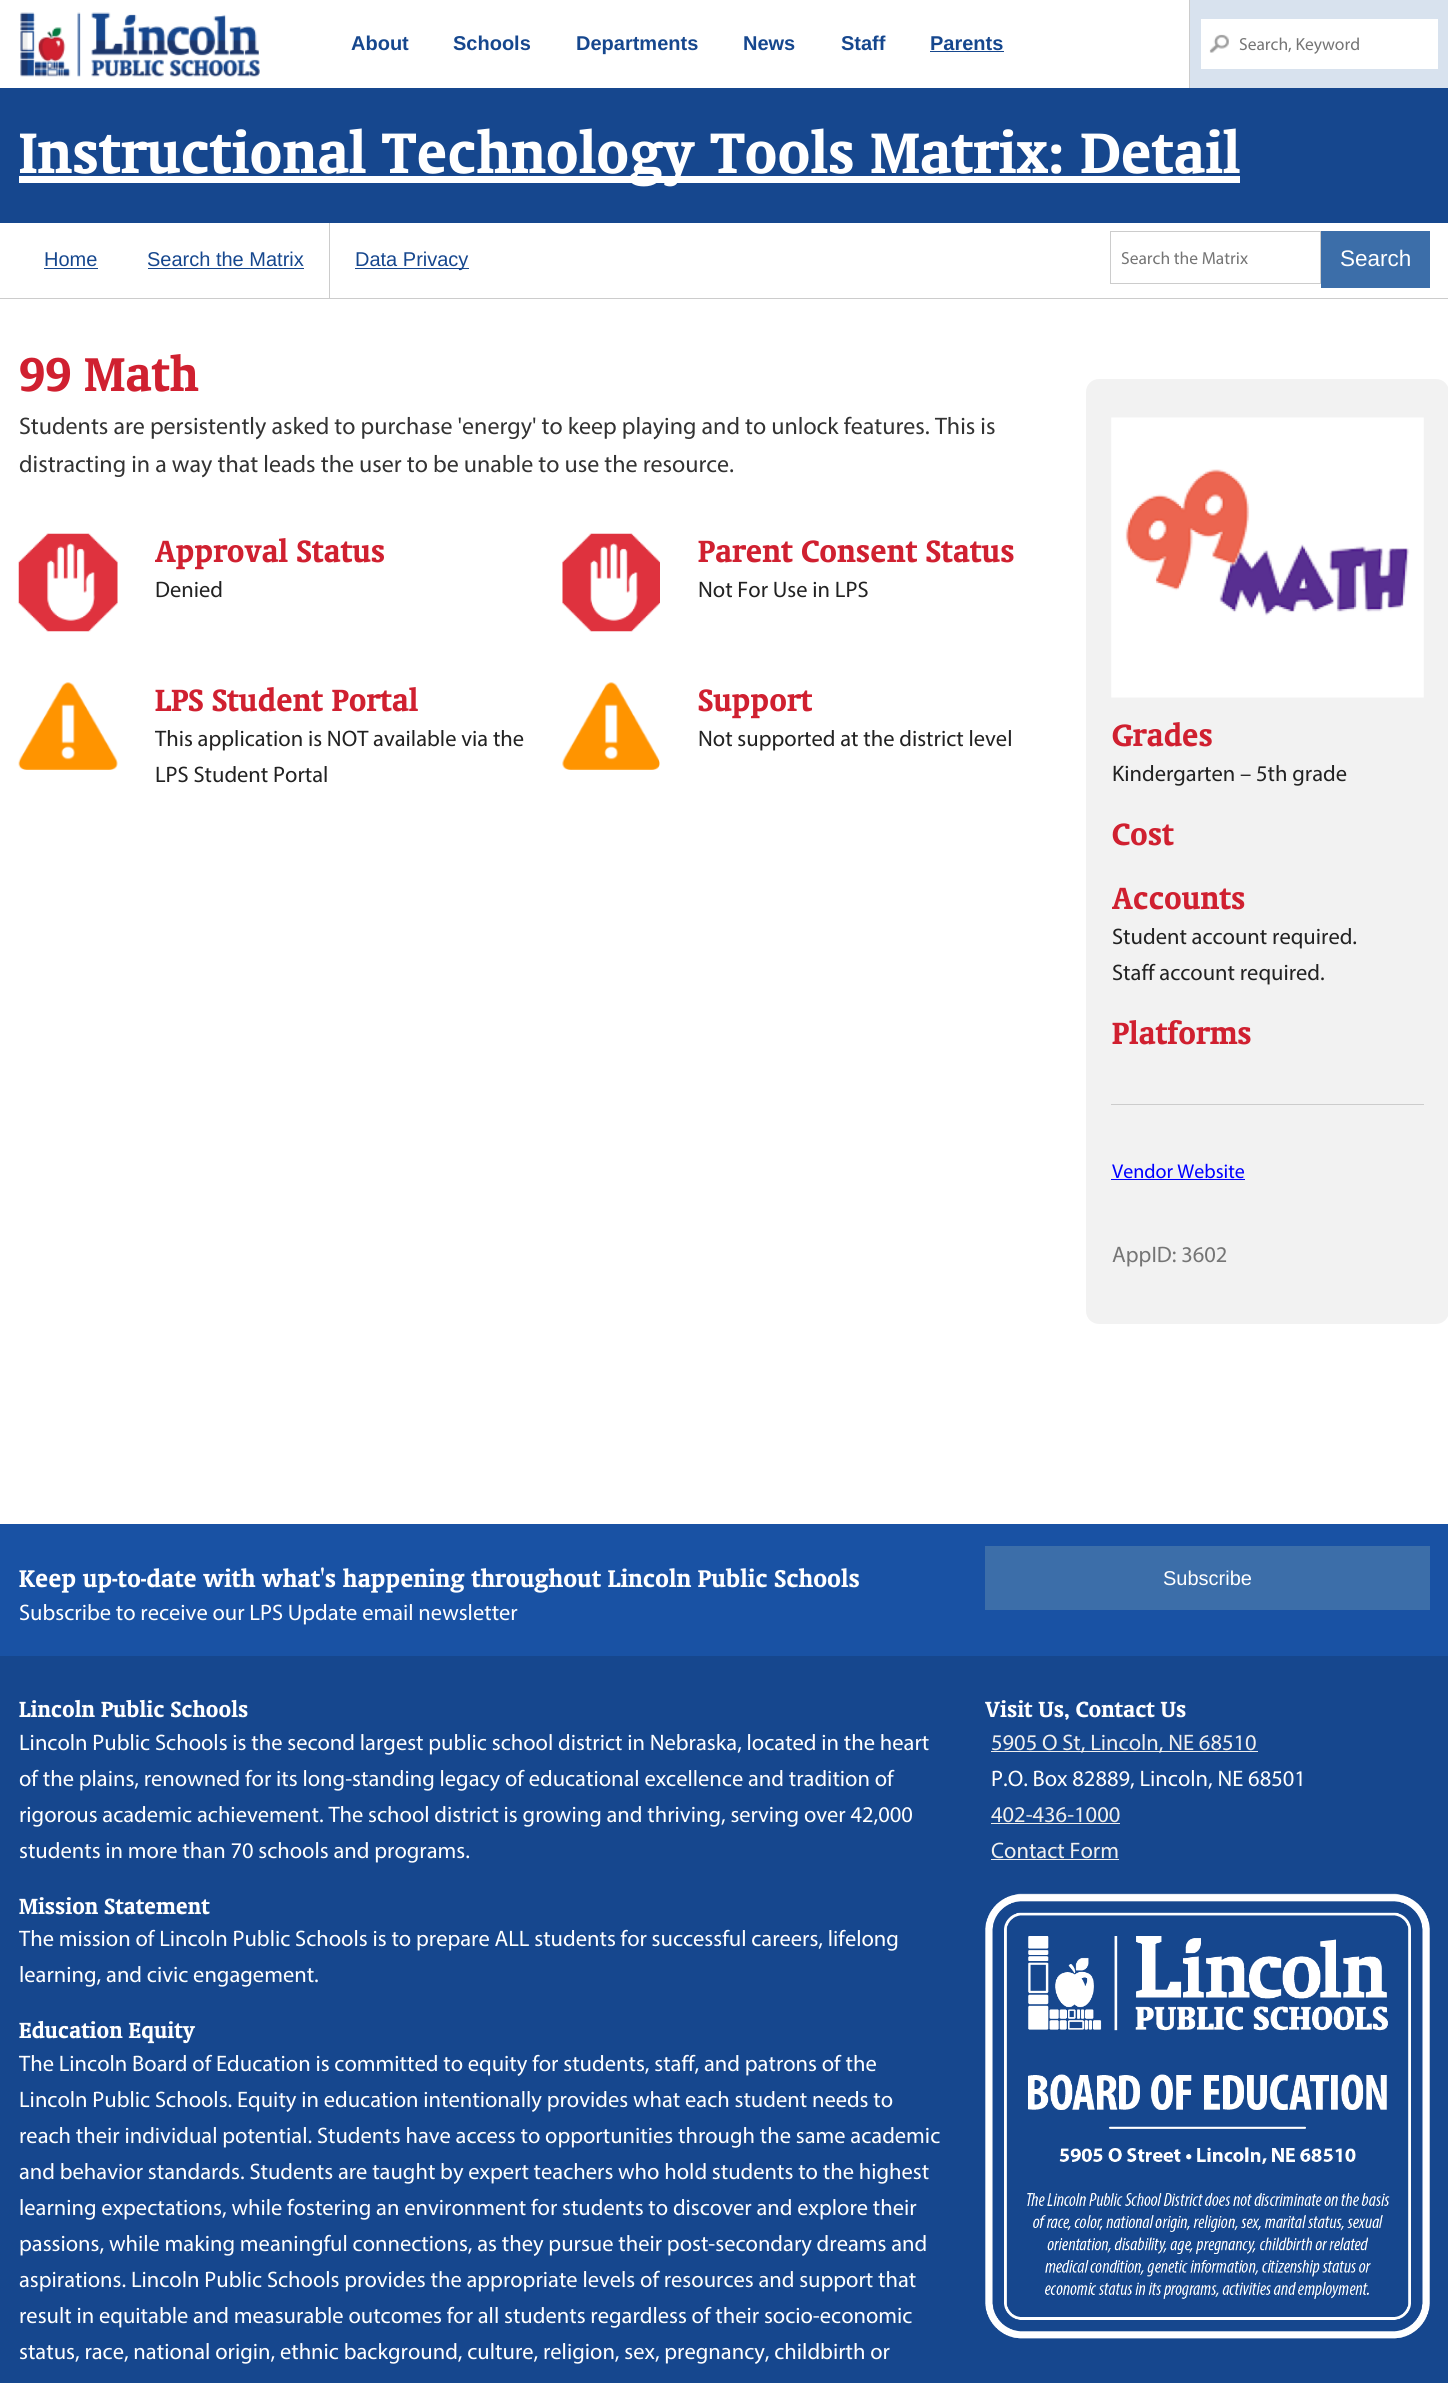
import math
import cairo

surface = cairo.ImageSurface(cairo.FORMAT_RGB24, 1448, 2383)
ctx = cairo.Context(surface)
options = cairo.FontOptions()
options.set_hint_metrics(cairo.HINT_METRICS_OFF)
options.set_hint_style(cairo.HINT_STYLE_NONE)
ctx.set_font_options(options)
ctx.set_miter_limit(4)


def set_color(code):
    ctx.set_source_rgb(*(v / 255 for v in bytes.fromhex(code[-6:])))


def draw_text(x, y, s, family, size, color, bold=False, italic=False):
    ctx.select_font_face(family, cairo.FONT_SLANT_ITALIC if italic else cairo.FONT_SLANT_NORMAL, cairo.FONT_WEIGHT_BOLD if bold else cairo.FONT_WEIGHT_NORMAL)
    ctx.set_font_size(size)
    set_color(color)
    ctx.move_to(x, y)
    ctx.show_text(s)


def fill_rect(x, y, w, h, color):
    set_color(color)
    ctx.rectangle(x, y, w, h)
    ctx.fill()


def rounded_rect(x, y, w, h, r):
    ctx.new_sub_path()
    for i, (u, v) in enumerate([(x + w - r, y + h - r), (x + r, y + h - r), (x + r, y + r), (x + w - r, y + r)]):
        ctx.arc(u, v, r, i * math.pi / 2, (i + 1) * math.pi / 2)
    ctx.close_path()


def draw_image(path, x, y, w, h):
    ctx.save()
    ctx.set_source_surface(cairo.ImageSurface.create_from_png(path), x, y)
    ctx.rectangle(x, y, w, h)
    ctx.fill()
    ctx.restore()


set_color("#ffffff")
ctx.paint()
draw_image("assets/img1.png", 20, 12, 240, 65)
draw_text(351, 50, "About", "Liberation Sans", 20, "#16478e", bold=True)
draw_text(453, 50, "Schools", "Liberation Sans", 20, "#16478e", bold=True)
draw_text(576, 50, "Departments", "Liberation Sans", 20, "#16478e", bold=True)
draw_text(743, 50, "News", "Liberation Sans", 20, "#16478e", bold=True)
draw_text(841, 50, "Staff", "Liberation Sans", 20, "#16478e", bold=True)
draw_text(930, 50, "Parents", "Liberation Sans", 20, "#16478e", bold=True)
fill_rect(930, 51, 74, 1, "#16478e")
fill_rect(1189, 0, 1, 88, "#cccccc")
fill_rect(1190, 0, 258, 88, "#d8e2ee")
fill_rect(1201, 19, 237, 50, "#ffffff")
draw_image("assets/img2.png", 1209, 34, 20, 19)
draw_text(1239, 50, "Search, Keyword", "Myriad", 17.5, "#757575")
fill_rect(0, 88, 1448, 135, "#16478e")
fill_rect(19, 176, 1221, 7, "#ffffff")
draw_text(19, 173, "Instructional Technology Tools Matrix: Detail", "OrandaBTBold", 65, "#ffffff")
fill_rect(0, 298, 1448, 1, "#cccccc")
draw_text(44, 266, "Home", "Liberation Sans", 20, "#16478e")
fill_rect(44, 268, 54, 1, "#16478e")
draw_text(147, 266, "Search the Matrix", "Liberation Sans", 20, "#16478e")
fill_rect(148, 268, 156, 1, "#16478e")
fill_rect(329, 223, 1, 75, "#cccccc")
fill_rect(355, 268, 114, 1, "#16478e")
draw_text(355, 266, "Data Privacy", "Liberation Sans", 20, "#16478e")
ctx.rectangle(1110.5, 231.5, 210, 52)
set_color("#cccccc")
ctx.set_line_width(1)
ctx.stroke()
draw_text(1121, 264, "Search the Matrix", "Myriad", 17.5, "#757575")
fill_rect(1321, 231, 109, 57, "#3c6ea9")
draw_text(1340, 266, "Search", "Liberation Sans", 22.5, "#ffffff")
draw_text(19, 391, "99 Math", "OrandaBTBold", 54, "#d02030")
draw_text(19, 434, "Students are persistently asked to purchase 'energy' to keep playing and to unlock features. This is", "Myriad", 24, "#333333")
draw_text(19, 472, "distracting in a way that leads the user to be unable to use the resource.", "Myriad", 24, "#333333")
draw_image("assets/img3.png", 18, 533, 100, 99)
draw_text(155, 562, "Approval Status", "OrandaBTBold", 35, "#d02030")
draw_text(155, 597, "Denied", "Myriad", 22.5, "#222222")
draw_image("assets/img4.png", 562, 533, 98, 99)
draw_text(698, 562, "Parent Consent Status", "OrandaBTBold", 35, "#d02030")
draw_text(698, 597, "Not For Use in LPS", "Myriad", 22.5, "#222222")
draw_image("assets/img5.png", 18, 682, 100, 88)
draw_text(155, 711, "LPS Student Portal", "OrandaBTBold", 35, "#d02030")
draw_text(155, 746, "This application is NOT available via the", "Myriad", 22.5, "#222222")
draw_text(155, 782, "LPS Student Portal", "Myriad", 22.5, "#222222")
draw_image("assets/img6.png", 562, 682, 98, 88)
draw_text(698, 711, "Support", "OrandaBTBold", 35, "#d02030")
draw_text(698, 746, "Not supported at the district level", "Myriad", 22.5, "#222222")
set_color("#f2f2f2")
rounded_rect(1086, 379, 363, 945, 13)
ctx.fill()
draw_image("assets/img7.png", 1111, 417, 313, 281)
draw_text(1112, 746, "Grades", "OrandaBTBold", 35, "#d02030")
draw_text(1112, 781, "Kindergarten – 5th grade", "Myriad", 22.5, "#222222")
draw_text(1112, 845, "Cost", "OrandaBTBold", 35, "#d02030")
draw_text(1112, 909, "Accounts", "OrandaBTBold", 35, "#d02030")
draw_text(1112, 944, "Student account required.", "Myriad", 22.5, "#222222")
draw_text(1112, 980, "Staff account required.", "Myriad", 22.5, "#222222")
draw_text(1112, 1044, "Platforms", "OrandaBTBold", 35, "#d02030")
fill_rect(1111, 1104, 313, 1, "#cccccc")
draw_text(1112, 1178, "Vendor Website", "Myriad", 20, "#0000ff")
fill_rect(1111, 1179, 134, 1, "#0000ff")
draw_text(1112, 1262, "AppID: 3602", "Myriad", 22.5, "#757575")
fill_rect(0, 1524, 1448, 132, "#1952a4")
draw_text(19, 1587, "Keep up-to-date with what's happening throughout Lincoln Public Schools", "OrandaBTBold", 27.5, "#ffffff")
draw_text(19, 1620, "Subscribe to receive our LPS Update email newsletter", "Myriad", 22.5, "#ffffff")
fill_rect(985, 1546, 445, 64, "#3c6ea9")
draw_text(1163, 1585, "Subscribe", "Liberation Sans", 20, "#ffffff")
fill_rect(0, 1656, 1448, 727, "#16478e")
draw_text(19, 1717, "Lincoln Public Schools", "OrandaBTBold", 25, "#ffffff")
draw_text(19, 1750, "Lincoln Public Schools is the second largest public school district in Nebraska, located in the heart", "Myriad", 22.5, "#ffffff")
draw_text(19, 1786, "of the plains, renowned for its long-standing legacy of educational excellence and tradition of", "Myriad", 22.5, "#ffffff")
draw_text(19, 1822, "rigorous academic achievement. The school district is growing and thriving, serving over 42,000", "Myriad", 22.5, "#ffffff")
draw_text(19, 1858, "students in more than 70 schools and programs.", "Myriad", 22.5, "#ffffff")
draw_text(19, 1914, "Mission Statement", "OrandaBTBold", 25, "#ffffff")
draw_text(19, 1946, "The mission of Lincoln Public Schools is to prepare ALL students for successful careers, lifelong", "Myriad", 22.5, "#ffffff")
draw_text(19, 1982, "learning, and civic engagement.", "Myriad", 22.5, "#ffffff")
draw_text(19, 2038, "Education Equity", "OrandaBTBold", 25, "#ffffff")
draw_text(19, 2071, "The Lincoln Board of Education is committed to equity for students, staff, and patrons of the", "Myriad", 22.5, "#ffffff")
draw_text(19, 2107, "Lincoln Public Schools. Equity in education intentionally provides what each student needs to", "Myriad", 22.5, "#ffffff")
draw_text(19, 2143, "reach their individual potential. Students have access to opportunities through the same academic", "Myriad", 22.5, "#ffffff")
draw_text(19, 2179, "and behavior standards. Students are taught by expert teachers who hold students to the highest", "Myriad", 22.5, "#ffffff")
draw_text(19, 2215, "learning expectations, while fostering an environment for students to discover and explore their", "Myriad", 22.5, "#ffffff")
draw_text(19, 2251, "passions, while making meaningful connections, as they pursue their post-secondary dreams and", "Myriad", 22.5, "#ffffff")
draw_text(19, 2287, "aspirations. Lincoln Public Schools provides the appropriate levels of resources and support that", "Myriad", 22.5, "#ffffff")
draw_text(19, 2323, "result in equitable and measurable outcomes for all students regardless of their socio-economic", "Myriad", 22.5, "#ffffff")
draw_text(19, 2359, "status, race, national origin, ethnic background, culture, religion, sex, pregnancy, childbirth or", "Myriad", 22.5, "#ffffff")
draw_text(985, 1717, "Visit Us, Contact Us", "OrandaBTBold", 25, "#ffffff")
fill_rect(991, 1751, 267, 1, "#efefef")
draw_text(991, 1750, "5905 O St, Lincoln, NE 68510", "Myriad", 22.5, "#efefef")
draw_text(991, 1786, "P.O. Box 82889, Lincoln, NE 68501", "Myriad", 22.5, "#ffffff")
draw_text(991, 1822, "402-436-1000", "Myriad", 22.5, "#efefef")
fill_rect(991, 1823, 129, 1, "#efefef")
draw_text(991, 1858, "Contact Form", "Myriad", 22.5, "#efefef")
fill_rect(991, 1859, 128, 1, "#efefef")
draw_image("assets/img8.png", 985, 1893, 445, 446)
surface.write_to_png("output.png")
